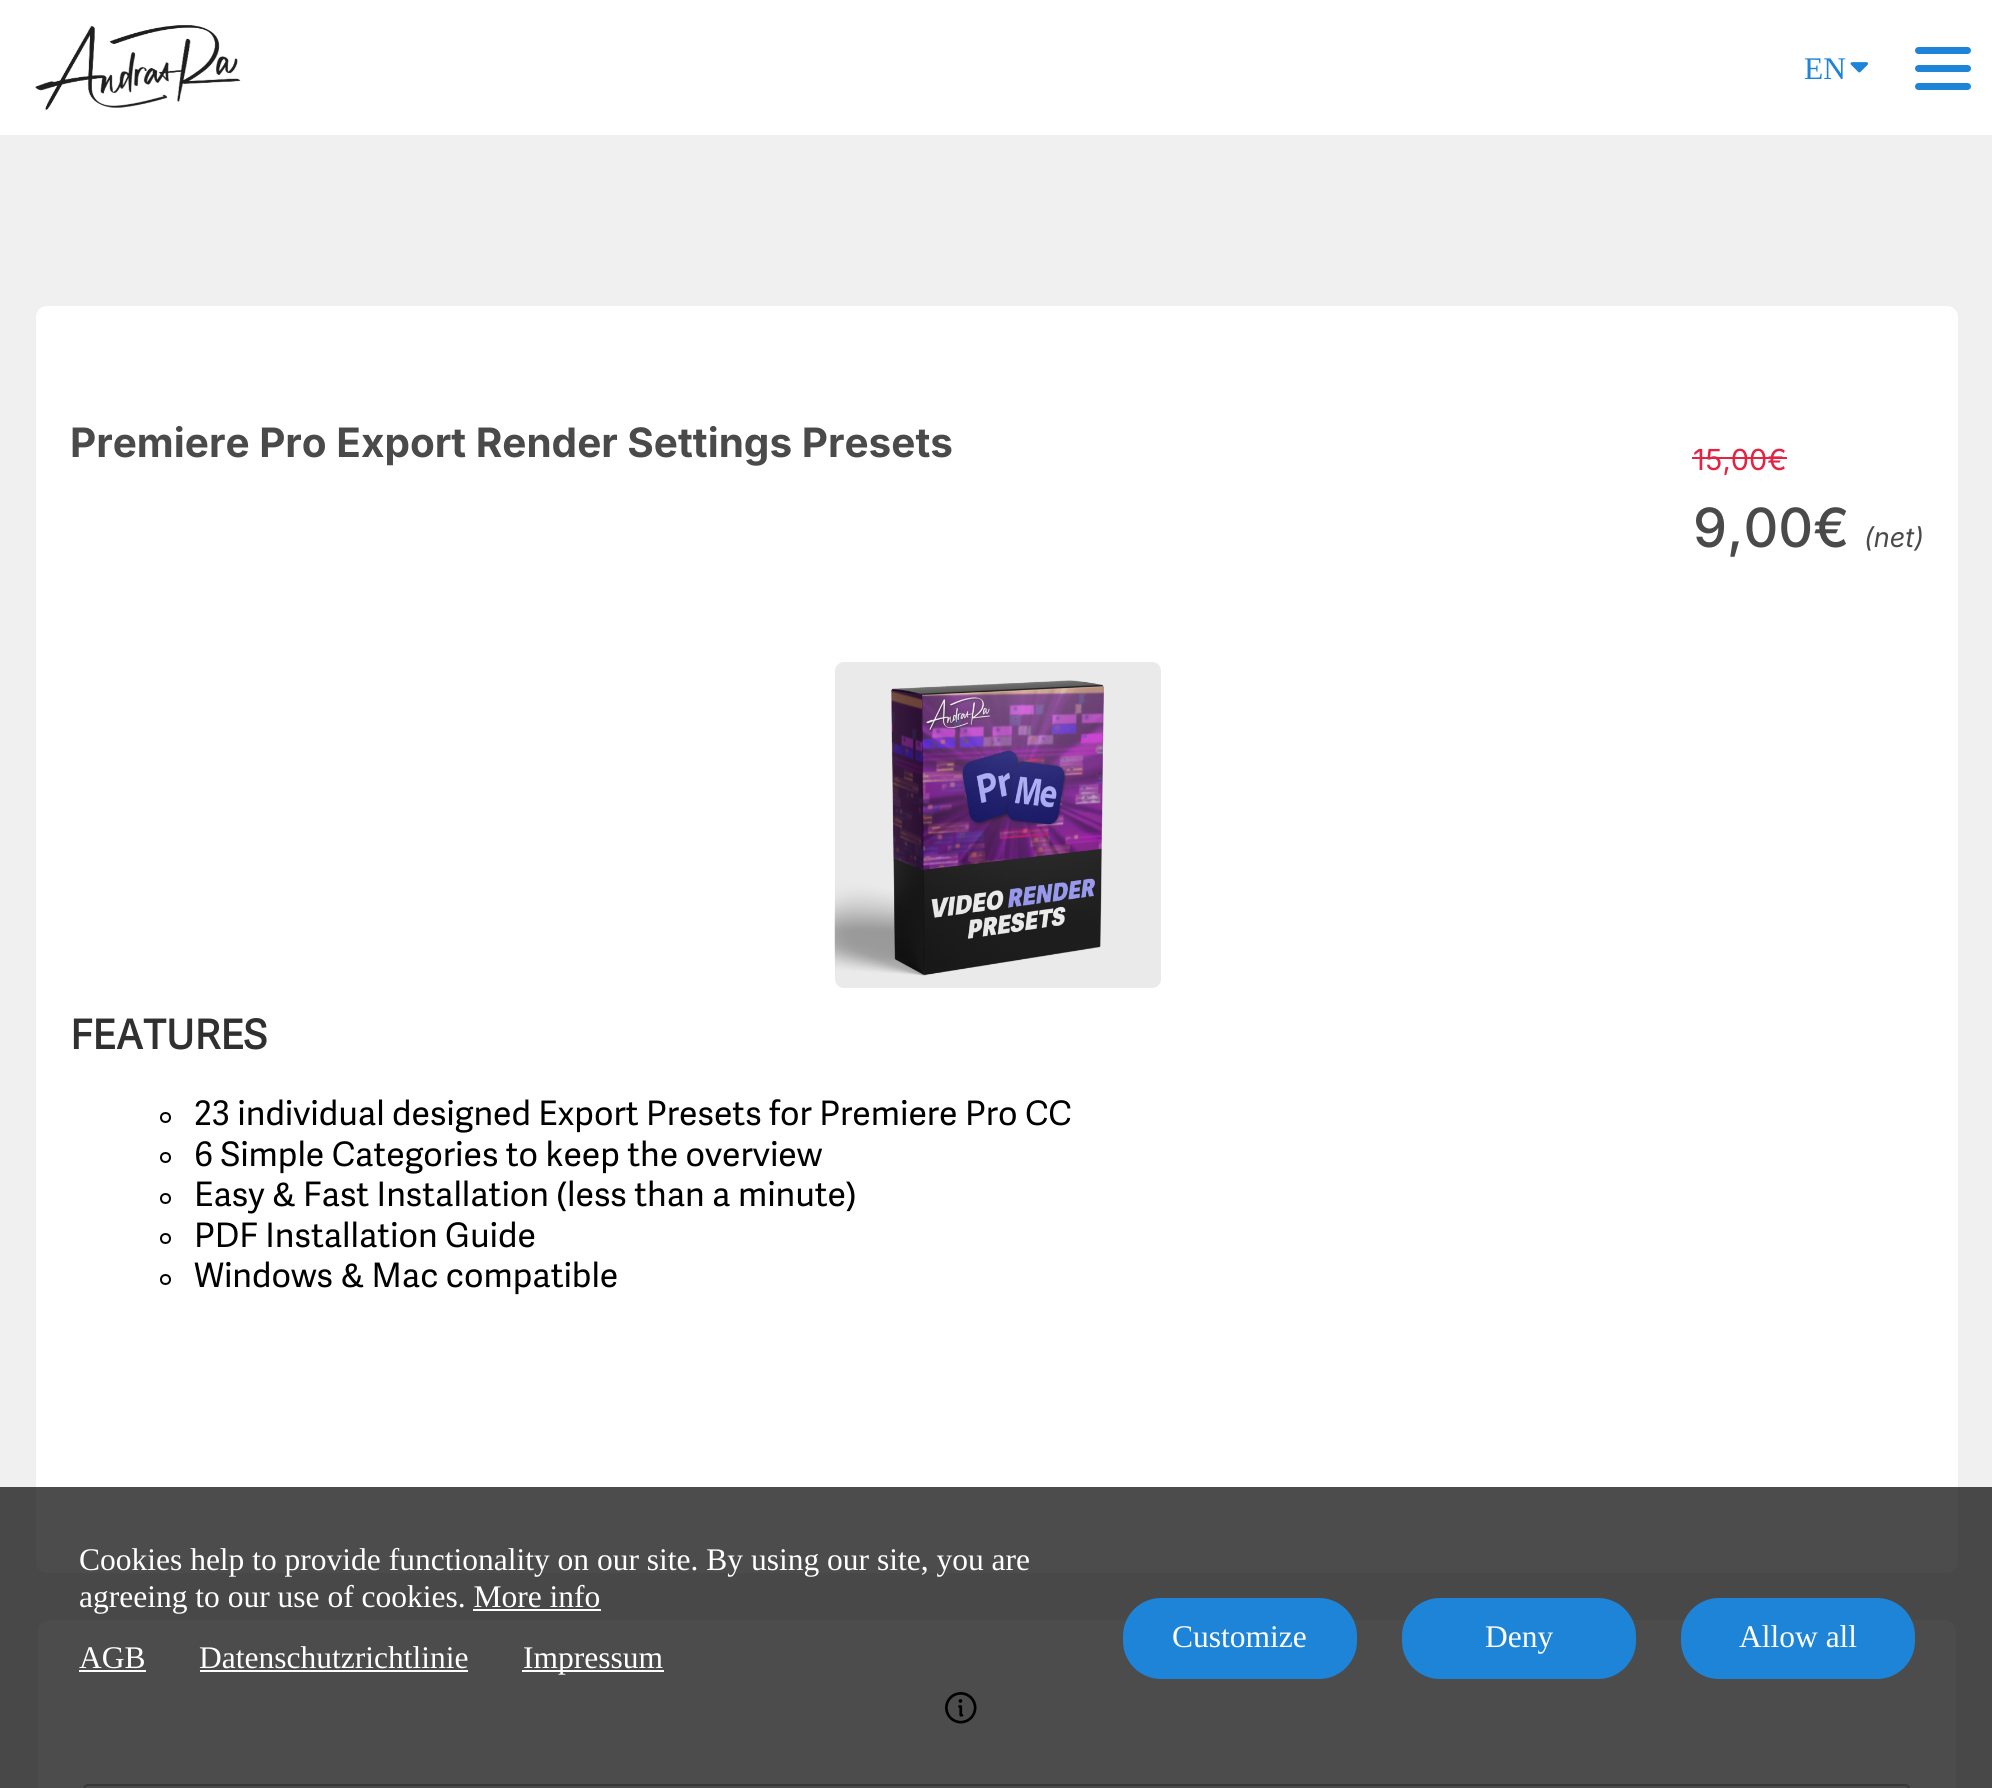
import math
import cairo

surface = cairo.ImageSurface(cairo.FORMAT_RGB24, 1992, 1788)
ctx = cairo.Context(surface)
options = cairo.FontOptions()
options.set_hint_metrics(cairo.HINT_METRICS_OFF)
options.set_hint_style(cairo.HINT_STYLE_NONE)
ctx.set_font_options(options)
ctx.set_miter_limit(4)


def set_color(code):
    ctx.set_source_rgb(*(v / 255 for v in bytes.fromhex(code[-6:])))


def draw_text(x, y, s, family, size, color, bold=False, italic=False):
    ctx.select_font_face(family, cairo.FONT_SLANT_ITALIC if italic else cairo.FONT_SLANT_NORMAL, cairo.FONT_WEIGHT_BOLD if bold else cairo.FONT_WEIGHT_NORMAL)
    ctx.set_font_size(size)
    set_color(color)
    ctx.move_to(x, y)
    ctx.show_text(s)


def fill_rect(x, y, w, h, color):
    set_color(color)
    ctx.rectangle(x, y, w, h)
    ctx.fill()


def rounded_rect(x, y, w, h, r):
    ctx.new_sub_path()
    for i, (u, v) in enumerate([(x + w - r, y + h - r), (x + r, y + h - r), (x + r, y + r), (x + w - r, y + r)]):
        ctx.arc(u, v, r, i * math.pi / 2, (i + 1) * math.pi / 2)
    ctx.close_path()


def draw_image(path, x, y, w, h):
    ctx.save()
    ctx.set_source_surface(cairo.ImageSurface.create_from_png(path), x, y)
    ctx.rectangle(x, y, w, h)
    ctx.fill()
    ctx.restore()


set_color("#f0f0f0")
ctx.paint()
fill_rect(0, 0, 1992, 135, "#ffffff")
draw_image("assets/img1.png", 35, 25, 206, 85)
draw_text(1804, 79, "EN", "Liberation Serif", 31.5, "#1e84d7")
draw_image("assets/img2.png", 1850, 62, 19, 11)
rounded_rect(1915, 47, 56, 7, 3.5)
ctx.fill()
rounded_rect(1915, 65, 56, 7, 3.5)
ctx.fill()
rounded_rect(1915, 83, 56, 7, 3.5)
ctx.fill()
set_color("#ffffff")
rounded_rect(36, 306, 1922, 1267, 11)
ctx.fill()
draw_text(70, 457, "Premiere Pro Export Render Settings Presets", "Inter", 40.5, "#4a4a4a", bold=True)
draw_text(1693, 470, "15,00€", "Inter", 29, "#e42242")
fill_rect(1692, 457, 95, 2, "#e42242")
draw_text(1693, 547, "9,00€", "Inter Medium", 54, "#4a4a4a")
draw_text(1864, 547, "(net)", "Inter", 27, "#4a4a4a", italic=True)
set_color("#eaeaea")
rounded_rect(835, 662, 326, 326, 9)
ctx.fill()
draw_image("assets/img3.png", 834, 680, 270, 296)
draw_text(70, 1049, "FEATURES", "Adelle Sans", 40.5, "#303030", bold=True)
ctx.new_path()
ctx.arc(165.5, 1117.5, 4.5, 0, 2 * math.pi)
set_color("#000000")
ctx.stroke()
draw_text(194, 1125, "23 individual designed Export Presets for Premiere Pro CC", "Adelle Sans", 33.75, "#000000")
ctx.new_path()
ctx.arc(165.5, 1157.5, 4.5, 0, 2 * math.pi)
ctx.stroke()
draw_text(194, 1166, "6 Simple Categories to keep the overview", "Adelle Sans", 33.75, "#000000")
ctx.new_path()
ctx.arc(165.5, 1198.5, 4.5, 0, 2 * math.pi)
ctx.stroke()
draw_text(194, 1206, "Easy & Fast Installation (less than a minute)", "Adelle Sans", 33.75, "#000000")
ctx.new_path()
ctx.arc(165.5, 1238.5, 4.5, 0, 2 * math.pi)
ctx.stroke()
draw_text(194, 1247, "PDF Installation Guide", "Adelle Sans", 33.75, "#000000")
ctx.new_path()
ctx.arc(165.5, 1279.5, 4.5, 0, 2 * math.pi)
ctx.stroke()
draw_text(194, 1287, "Windows & Mac compatible", "Adelle Sans", 33.75, "#000000")
set_color("#ffffff")
rounded_rect(37, 1619, 1920, 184, 13)
ctx.fill_preserve()
set_color("#f4f3f4")
ctx.stroke()
draw_image("assets/img4.png", 945, 1692, 32, 32)
set_color("#f7f7f7")
rounded_rect(84, 1785, 1825, 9, 4)
ctx.fill_preserve()
set_color("#bbbbbb")
ctx.stroke()
ctx.set_source_rgba(0, 0, 0, 0.7)
ctx.rectangle(0, 1487, 1992, 301)
ctx.fill()
draw_text(79, 1570, "Cookies help to provide functionality on our site. By using our site, you are", "Liberation Serif", 31.5, "#ffffff")
draw_text(79, 1607, "agreeing to our use of cookies. More info", "Liberation Serif", 31.5, "#ffffff")
fill_rect(473, 1609, 128, 2, "#ffffff")
draw_text(79, 1668, "AGB", "Liberation Serif", 31.5, "#ffffff")
fill_rect(79, 1670, 67, 2, "#ffffff")
draw_text(199, 1668, "Datenschutzrichtlinie", "Liberation Serif", 31.5, "#ffffff")
fill_rect(200, 1670, 268, 2, "#ffffff")
fill_rect(522, 1670, 142, 2, "#ffffff")
draw_text(523, 1668, "Impressum", "Liberation Serif", 31.5, "#ffffff")
set_color("#1e84d7")
rounded_rect(1123, 1598, 234, 81, 38)
ctx.fill()
draw_text(1172, 1647, "Customize", "Liberation Serif", 31.5, "#ffffff")
set_color("#1e84d7")
rounded_rect(1402, 1598, 234, 81, 38)
ctx.fill()
draw_text(1485, 1647, "Deny", "Liberation Serif", 31.5, "#ffffff")
set_color("#1e84d7")
rounded_rect(1681, 1598, 234, 81, 38)
ctx.fill()
draw_text(1739, 1647, "Allow all", "Liberation Serif", 31.5, "#ffffff")
surface.write_to_png("output.png")
